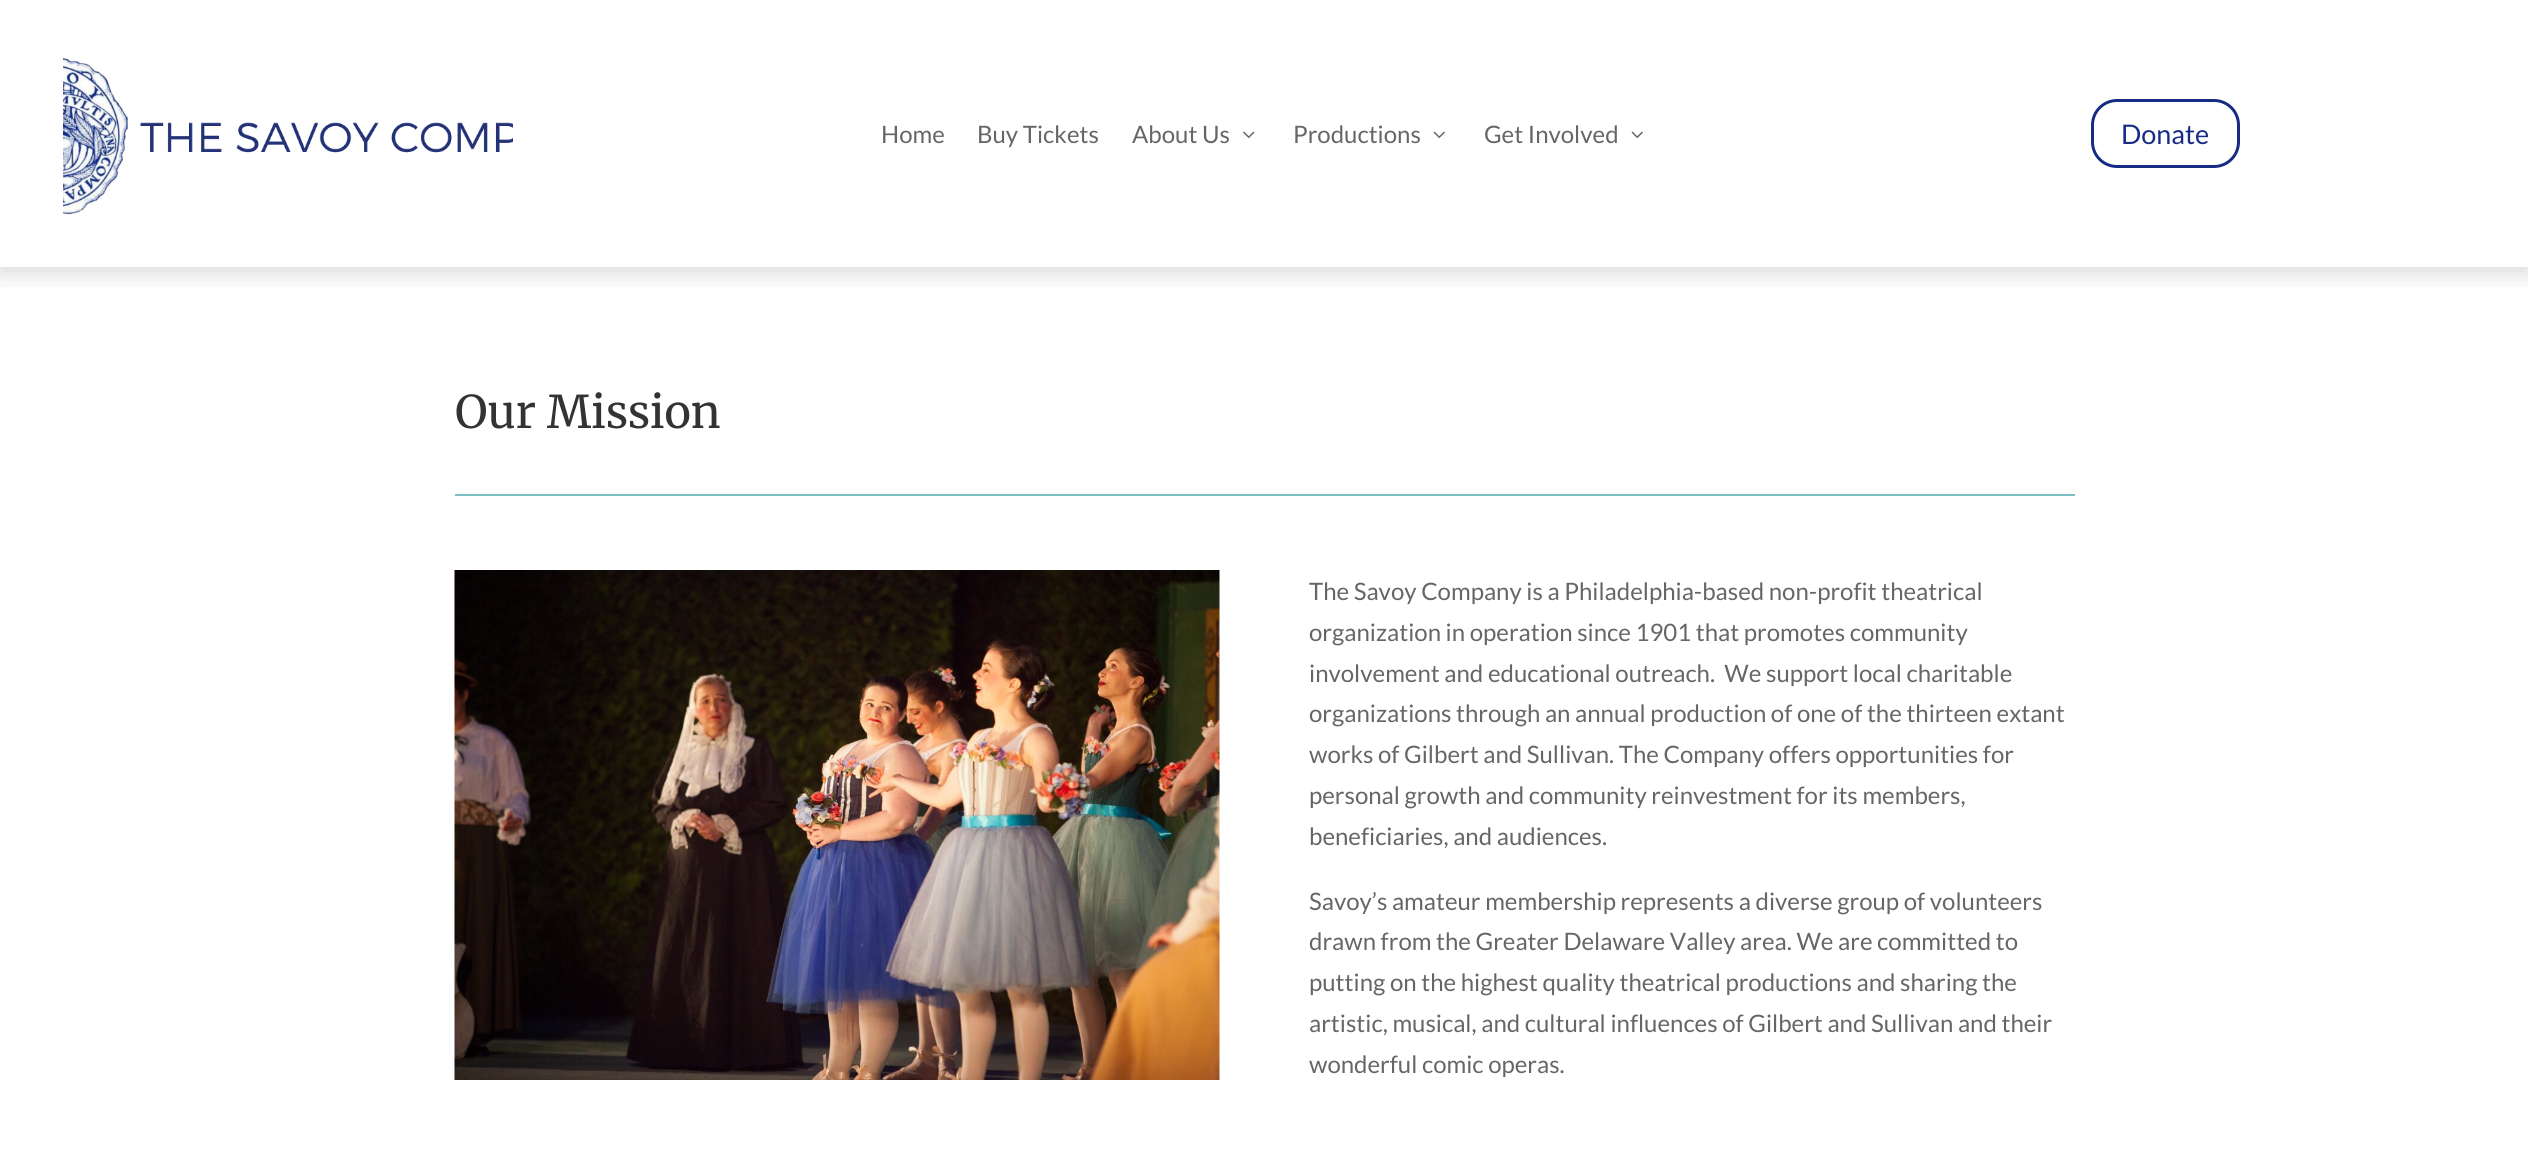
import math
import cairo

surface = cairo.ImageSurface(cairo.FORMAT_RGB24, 2528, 1160)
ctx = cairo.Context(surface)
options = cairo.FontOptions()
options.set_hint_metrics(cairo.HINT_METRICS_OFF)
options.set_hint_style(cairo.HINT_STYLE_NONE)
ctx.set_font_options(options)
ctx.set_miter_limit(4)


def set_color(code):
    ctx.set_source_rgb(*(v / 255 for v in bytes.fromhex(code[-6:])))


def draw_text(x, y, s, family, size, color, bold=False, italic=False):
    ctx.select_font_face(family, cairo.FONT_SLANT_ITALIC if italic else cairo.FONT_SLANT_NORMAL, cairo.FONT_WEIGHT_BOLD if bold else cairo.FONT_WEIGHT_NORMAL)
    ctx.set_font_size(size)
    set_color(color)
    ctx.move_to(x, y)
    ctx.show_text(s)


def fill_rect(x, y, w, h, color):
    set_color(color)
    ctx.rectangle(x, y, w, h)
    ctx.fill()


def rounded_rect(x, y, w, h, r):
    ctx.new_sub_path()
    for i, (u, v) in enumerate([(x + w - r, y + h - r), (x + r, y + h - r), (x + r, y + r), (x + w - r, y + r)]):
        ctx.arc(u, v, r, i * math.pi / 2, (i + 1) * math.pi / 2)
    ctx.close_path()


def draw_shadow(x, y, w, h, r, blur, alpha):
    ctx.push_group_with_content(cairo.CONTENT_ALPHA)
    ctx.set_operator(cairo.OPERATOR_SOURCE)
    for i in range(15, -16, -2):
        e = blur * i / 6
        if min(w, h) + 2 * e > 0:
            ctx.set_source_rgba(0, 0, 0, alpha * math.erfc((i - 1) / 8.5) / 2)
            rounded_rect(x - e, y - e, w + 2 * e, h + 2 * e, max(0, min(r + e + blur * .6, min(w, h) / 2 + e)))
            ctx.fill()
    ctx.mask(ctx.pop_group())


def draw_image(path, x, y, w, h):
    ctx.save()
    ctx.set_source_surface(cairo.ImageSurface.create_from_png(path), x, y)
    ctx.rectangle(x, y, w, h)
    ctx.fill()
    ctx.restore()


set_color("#ffffff")
ctx.paint()
ctx.save()
ctx.rectangle(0, 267, 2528, 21)
ctx.clip()
set_color("#000000")
draw_shadow(0, 3, 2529, 267, 0, 14, 0.19)
ctx.restore()
draw_image("assets/img1.png", 63, 57, 450, 158)
draw_text(881, 143, "Home", "Lato", 24, "#666666")
draw_text(977, 143, "Buy Tickets", "Lato", 24, "#666666")
draw_text(1132, 143, "About Us", "Lato", 24, "#666666")
draw_image("assets/img2.png", 1243, 131, 12, 7)
draw_text(1293, 143, "Productions", "Lato", 24, "#666666")
draw_image("assets/img3.png", 1433, 131, 12, 7)
draw_text(1484, 143, "Get Involved", "Lato", 24, "#666666")
draw_image("assets/img3.png", 1631, 131, 12, 7)
rounded_rect(2092.5, 100.5, 146, 66, 24.5)
set_color("#172d85")
ctx.set_line_width(3)
ctx.stroke()
draw_text(2121, 144, "Donate", "Lato", 27, "#172d85")
draw_text(455, 428, "Our Mission", "Merriweather", 45, "#333333")
fill_rect(455, 494, 1620, 2, "#7ebec5")
draw_image("assets/img4.png", 454, 570, 766, 510)
draw_text(1309, 600, "The Savoy Company is a Philadelphia-based non-profit theatrical", "Lato", 24, "#666666")
draw_text(1309, 641, "organization in operation since 1901 that promotes community", "Lato", 24, "#666666")
draw_text(1309, 682, "involvement and educational outreach.  We support local charitable", "Lato", 24, "#666666")
draw_text(1309, 722, "organizations through an annual production of one of the thirteen extant", "Lato", 24, "#666666")
draw_text(1309, 763, "works of Gilbert and Sullivan. The Company offers opportunities for", "Lato", 24, "#666666")
draw_text(1309, 804, "personal growth and community reinvestment for its members,", "Lato", 24, "#666666")
draw_text(1309, 845, "beneficiaries, and audiences.", "Lato", 24, "#666666")
draw_text(1309, 910, "Savoy’s amateur membership represents a diverse group of volunteers", "Lato", 24, "#666666")
draw_text(1309, 950, "drawn from the Greater Delaware Valley area. We are committed to", "Lato", 24, "#666666")
draw_text(1309, 991, "putting on the highest quality theatrical productions and sharing the", "Lato", 24, "#666666")
draw_text(1309, 1032, "artistic, musical, and cultural influences of Gilbert and Sullivan and their", "Lato", 24, "#666666")
draw_text(1309, 1073, "wonderful comic operas.", "Lato", 24, "#666666")
surface.write_to_png("output.png")
